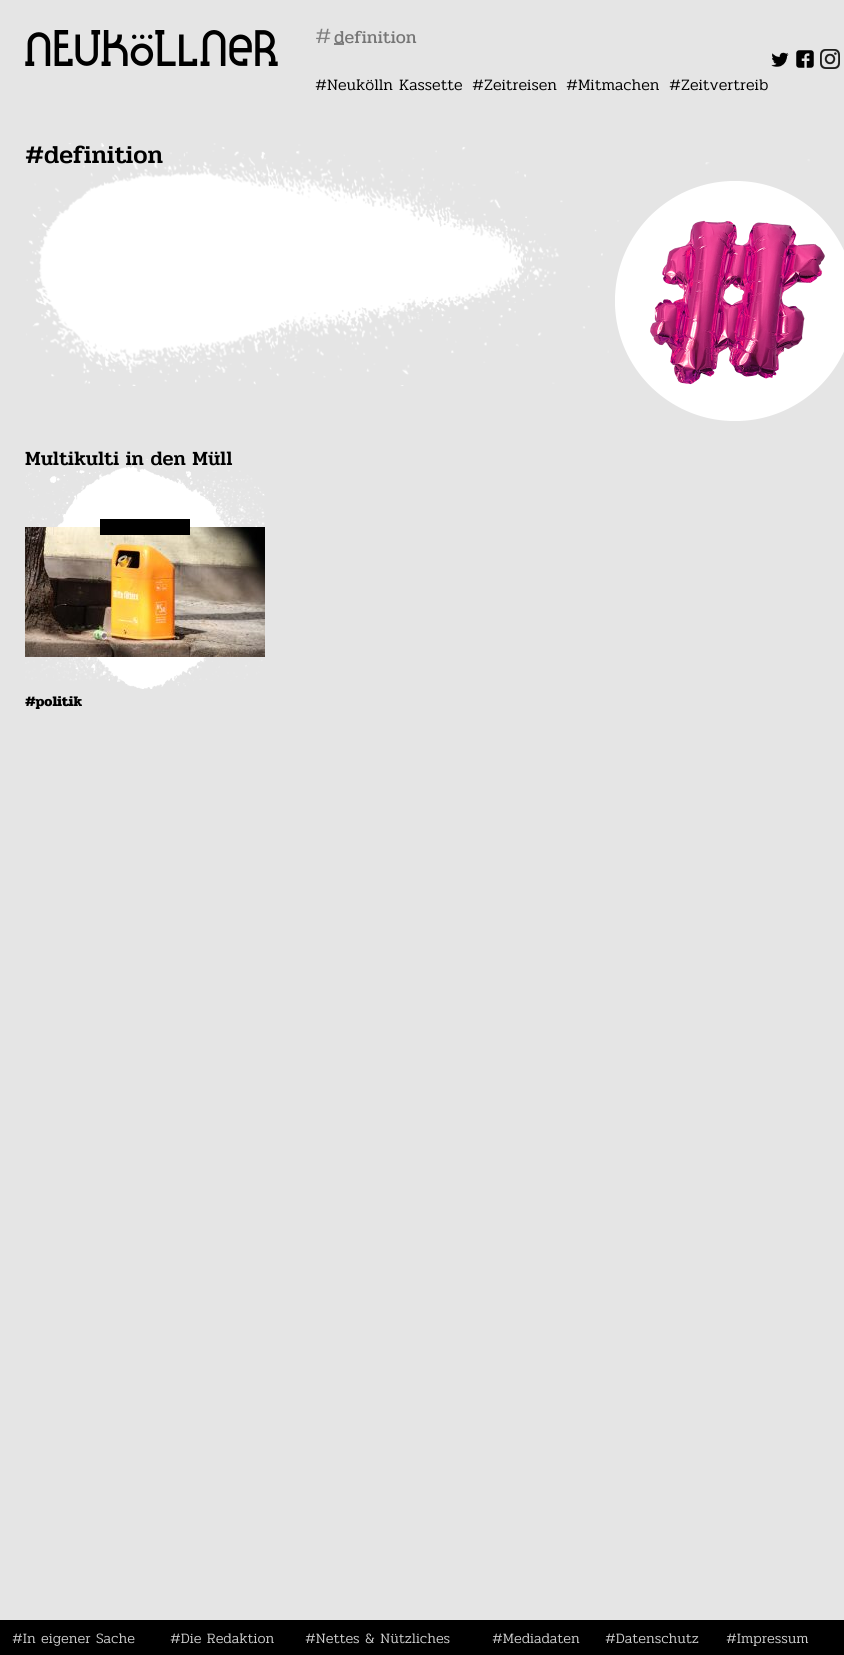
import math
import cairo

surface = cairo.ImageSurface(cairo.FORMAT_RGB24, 844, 1655)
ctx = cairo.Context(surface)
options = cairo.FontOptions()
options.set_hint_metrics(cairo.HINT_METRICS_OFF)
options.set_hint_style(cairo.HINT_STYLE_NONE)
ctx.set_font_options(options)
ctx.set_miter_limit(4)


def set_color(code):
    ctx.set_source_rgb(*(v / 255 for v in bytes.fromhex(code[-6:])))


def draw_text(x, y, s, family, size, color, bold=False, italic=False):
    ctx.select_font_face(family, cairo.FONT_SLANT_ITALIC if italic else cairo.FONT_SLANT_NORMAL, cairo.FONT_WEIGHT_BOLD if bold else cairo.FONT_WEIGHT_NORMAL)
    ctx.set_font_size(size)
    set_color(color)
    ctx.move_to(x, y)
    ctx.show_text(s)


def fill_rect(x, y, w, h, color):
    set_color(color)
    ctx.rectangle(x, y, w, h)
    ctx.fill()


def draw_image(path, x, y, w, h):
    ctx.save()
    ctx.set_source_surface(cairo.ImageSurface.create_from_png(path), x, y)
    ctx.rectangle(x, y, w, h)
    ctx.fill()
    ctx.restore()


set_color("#e5e5e5")
ctx.paint()
draw_image("assets/img1.png", 25, 30, 253, 36)
draw_text(315, 43, "#", "Pridi Light", 22, "#808080")
fill_rect(334, 43, 10, 2, "#808080")
draw_text(334, 43, "definition", "Pridi", 18, "#757575")
draw_image("assets/img2.png", 771, 52, 18, 15)
draw_image("assets/img3.png", 796, 50, 18, 18)
draw_image("assets/img4.png", 820, 49, 20, 20)
draw_text(315, 90, "#Neukölln Kassette", "Pridi Light", 16, "#000000")
draw_text(472, 90, "#Zeitreisen", "Pridi Light", 16, "#000000")
draw_text(566, 90, "#Mitmachen", "Pridi Light", 16, "#000000")
draw_text(669, 90, "#Zeitvertreib", "Pridi Light", 16, "#000000")
draw_image("assets/img5.png", 26, 143, 784, 243)
draw_text(25, 163, "#definition", "Pridi Medium", 25.5, "#000000")
draw_image("assets/img6.png", 615, 181, 229, 240)
draw_image("assets/img7.png", 25, 459, 240, 230)
draw_text(25, 465, "Multikulti in den Müll", "Pridi Medium", 20.25, "#000000")
draw_image("assets/img8.png", 25, 527, 240, 130)
fill_rect(100, 519, 90, 16, "#000000")
draw_text(25, 706, "#politik", "Pridi", 14.4, "#000000", bold=True)
fill_rect(0, 1620, 844, 35, "#000000")
draw_text(12, 1643, "#In eigener Sache", "Pridi Light", 14.4, "#cccccc")
draw_text(170, 1643, "#Die Redaktion", "Pridi Light", 14.4, "#cccccc")
draw_text(305, 1643, "#Nettes & Nützliches", "Pridi Light", 14.4, "#cccccc")
draw_text(492, 1643, "#Mediadaten", "Pridi Light", 14.4, "#cccccc")
draw_text(605, 1643, "#Datenschutz", "Pridi Light", 14.4, "#cccccc")
draw_text(726, 1643, "#Impressum", "Pridi Light", 14.4, "#cccccc")
surface.write_to_png("output.png")
